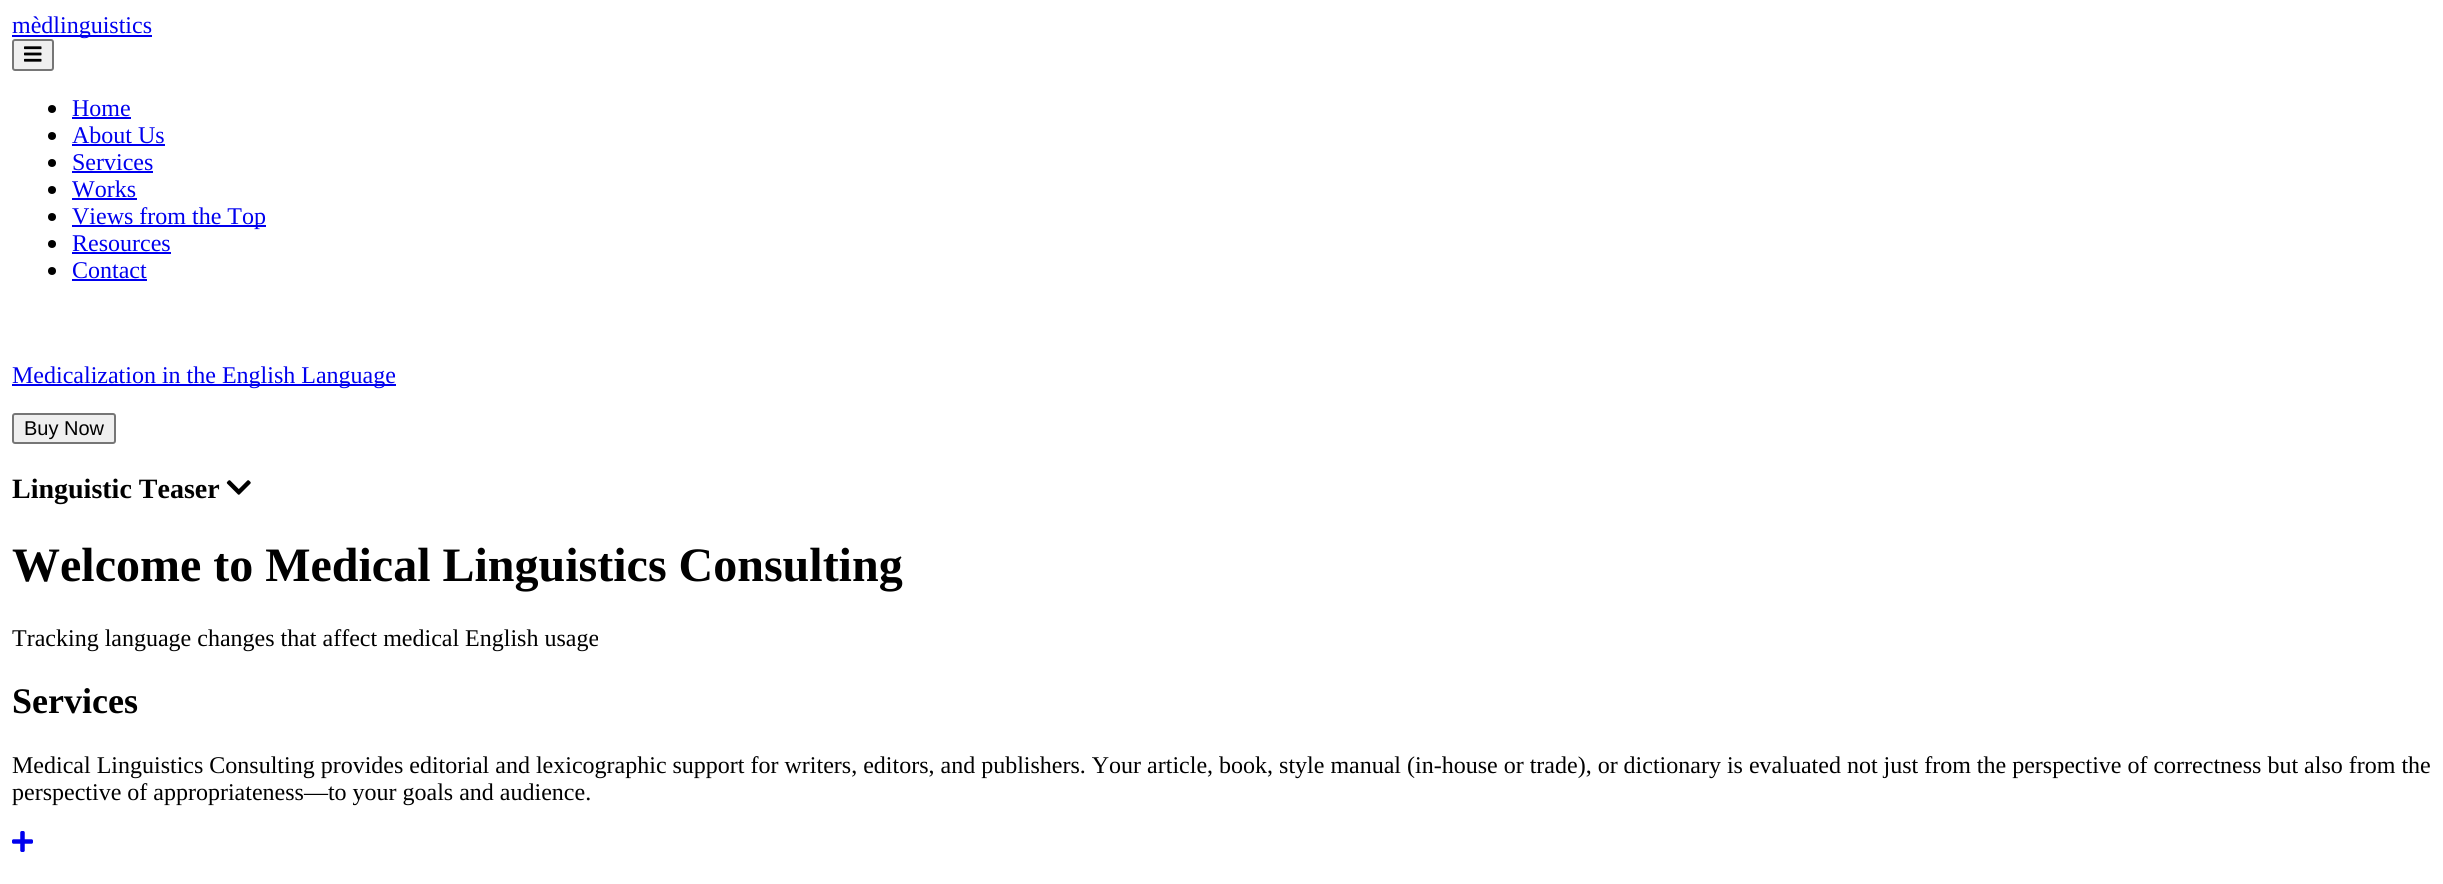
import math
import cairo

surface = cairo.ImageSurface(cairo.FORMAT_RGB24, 2443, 884)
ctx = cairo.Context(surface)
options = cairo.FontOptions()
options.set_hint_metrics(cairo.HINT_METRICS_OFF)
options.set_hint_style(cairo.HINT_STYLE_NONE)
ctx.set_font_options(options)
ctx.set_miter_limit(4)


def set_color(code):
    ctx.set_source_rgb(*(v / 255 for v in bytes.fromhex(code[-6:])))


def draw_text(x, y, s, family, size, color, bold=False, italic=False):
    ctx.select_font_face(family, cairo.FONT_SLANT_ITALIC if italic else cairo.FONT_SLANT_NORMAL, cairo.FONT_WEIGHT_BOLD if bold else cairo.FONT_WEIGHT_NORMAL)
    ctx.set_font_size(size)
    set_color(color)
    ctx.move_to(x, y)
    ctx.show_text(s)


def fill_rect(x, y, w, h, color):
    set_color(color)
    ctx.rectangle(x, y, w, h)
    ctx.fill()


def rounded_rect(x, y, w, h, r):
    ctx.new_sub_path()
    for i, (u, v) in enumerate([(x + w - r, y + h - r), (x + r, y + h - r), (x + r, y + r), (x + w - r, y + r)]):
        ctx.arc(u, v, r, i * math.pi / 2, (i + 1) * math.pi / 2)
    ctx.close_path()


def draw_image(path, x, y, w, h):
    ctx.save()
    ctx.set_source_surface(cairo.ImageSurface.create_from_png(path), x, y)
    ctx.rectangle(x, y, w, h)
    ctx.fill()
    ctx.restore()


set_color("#ffffff")
ctx.paint()
fill_rect(12, 35, 140, 2, "#0000ee")
draw_text(12, 33, "mèdlinguistics", "Liberation Serif", 24, "#0000ee")
set_color("#efefef")
rounded_rect(13, 40, 40, 30, 2)
ctx.fill_preserve()
set_color("#767676")
ctx.stroke()
draw_image("assets/img1.png", 24, 46, 18, 16)
set_color("#000000")
ctx.arc(52, 109, 4, 0, 2 * math.pi)
ctx.fill()
draw_text(72, 116, "Home", "Liberation Serif", 24, "#0000ee")
fill_rect(72, 117, 59, 2, "#0000ee")
set_color("#000000")
ctx.new_path()
ctx.arc(52, 136, 4, 0, 2 * math.pi)
ctx.fill()
draw_text(72, 143, "About Us", "Liberation Serif", 24, "#0000ee")
fill_rect(72, 144, 93, 2, "#0000ee")
set_color("#000000")
ctx.new_path()
ctx.arc(52, 163, 4, 0, 2 * math.pi)
ctx.fill()
draw_text(72, 170, "Services", "Liberation Serif", 24, "#0000ee")
fill_rect(72, 171, 81, 2, "#0000ee")
set_color("#000000")
ctx.new_path()
ctx.arc(52, 190, 4, 0, 2 * math.pi)
ctx.fill()
draw_text(72, 197, "Works", "Liberation Serif", 24, "#0000ee")
fill_rect(72, 198, 65, 2, "#0000ee")
set_color("#000000")
ctx.new_path()
ctx.arc(52, 217, 4, 0, 2 * math.pi)
ctx.fill()
fill_rect(72, 225, 194, 2, "#0000ee")
draw_text(72, 224, "Views from the Top", "Liberation Serif", 24, "#0000ee")
set_color("#000000")
ctx.new_path()
ctx.arc(52, 244, 4, 0, 2 * math.pi)
ctx.fill()
draw_text(72, 251, "Resources", "Liberation Serif", 24, "#0000ee")
fill_rect(72, 252, 99, 2, "#0000ee")
set_color("#000000")
ctx.new_path()
ctx.arc(52, 271, 4, 0, 2 * math.pi)
ctx.fill()
draw_text(72, 278, "Contact", "Liberation Serif", 24, "#0000ee")
fill_rect(72, 279, 75, 2, "#0000ee")
fill_rect(12, 384, 384, 2, "#0000ee")
draw_text(12, 383, "Medicalization in the English Language", "Liberation Serif", 24, "#0000ee")
set_color("#efefef")
rounded_rect(13, 414, 102, 29, 2)
ctx.fill_preserve()
set_color("#767676")
ctx.stroke()
draw_text(24, 435, "Buy Now", "Liberation Sans", 20, "#000000")
draw_text(12, 498, "Linguistic Teaser", "Liberation Serif", 28, "#000000", bold=True)
draw_image("assets/img2.png", 226, 480, 25, 15)
draw_text(12, 581, "Welcome to Medical Linguistics Consulting", "Liberation Serif", 48, "#000000", bold=True)
draw_text(12, 646, "Tracking language changes that affect medical English usage", "Liberation Serif", 24, "#000000")
draw_text(12, 713, "Services", "Liberation Serif", 36, "#000000", bold=True)
draw_text(12, 773, "Medical Linguistics Consulting provides editorial and lexicographic support for writers, editors, and publishers. Your article, book, style manual (in-house or trade), or dictionary is evaluated not just from the perspective of correctness but also from the", "Liberation Serif", 24, "#000000")
draw_text(12, 800, "perspective of appropriateness—to your goals and audience.", "Liberation Serif", 24, "#000000")
draw_image("assets/img3.png", 12, 831, 21, 21)
surface.write_to_png("output.png")
